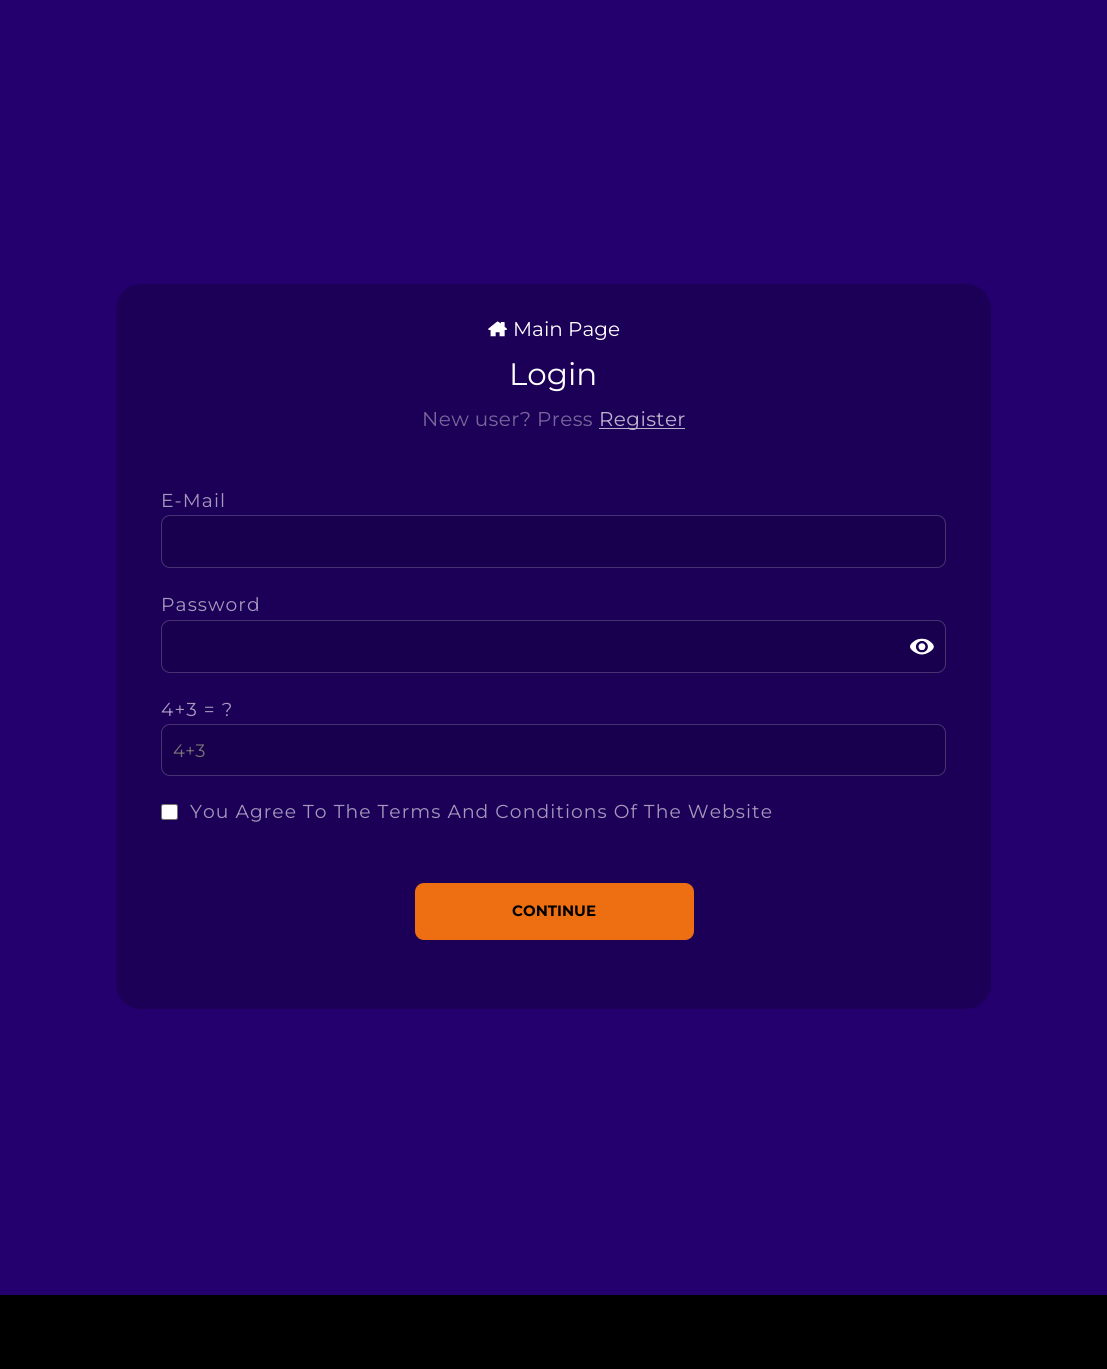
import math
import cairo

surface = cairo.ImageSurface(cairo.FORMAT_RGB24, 1107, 1369)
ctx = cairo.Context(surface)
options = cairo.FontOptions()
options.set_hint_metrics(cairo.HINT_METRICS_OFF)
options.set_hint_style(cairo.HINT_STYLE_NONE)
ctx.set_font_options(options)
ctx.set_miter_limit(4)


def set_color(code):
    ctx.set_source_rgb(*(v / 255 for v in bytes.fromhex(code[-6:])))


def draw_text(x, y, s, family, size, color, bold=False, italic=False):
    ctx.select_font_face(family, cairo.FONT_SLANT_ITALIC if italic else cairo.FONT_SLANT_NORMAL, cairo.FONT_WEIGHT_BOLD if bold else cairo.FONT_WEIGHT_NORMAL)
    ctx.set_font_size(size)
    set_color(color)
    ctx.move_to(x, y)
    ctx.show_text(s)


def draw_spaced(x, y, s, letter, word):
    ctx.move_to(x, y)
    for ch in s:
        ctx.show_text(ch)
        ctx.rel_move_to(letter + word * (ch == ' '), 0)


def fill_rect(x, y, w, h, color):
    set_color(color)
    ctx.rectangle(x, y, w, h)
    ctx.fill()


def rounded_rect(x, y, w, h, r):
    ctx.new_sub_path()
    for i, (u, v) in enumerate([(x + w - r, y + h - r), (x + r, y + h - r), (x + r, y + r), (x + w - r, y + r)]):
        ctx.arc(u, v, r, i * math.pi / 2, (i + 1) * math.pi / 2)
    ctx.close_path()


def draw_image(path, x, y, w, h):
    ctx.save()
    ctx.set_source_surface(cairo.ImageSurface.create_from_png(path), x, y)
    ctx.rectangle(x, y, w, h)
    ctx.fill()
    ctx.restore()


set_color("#000000")
ctx.paint()
fill_rect(0, 0, 1107, 1295, "#23006d")
set_color("#1c0057")
rounded_rect(116, 284, 875, 725, 25)
ctx.fill()
draw_image("assets/img1.png", 488, 321, 19, 16)
draw_text(513, 336, "Main Page", "Montserrat", 20, "#ffffff")
draw_text(509, 385, "Login", "Montserrat", 31, "#ffffff")
ctx.set_font_size(20)
set_color("#77669a")
draw_spaced(422, 426, "New user? Press", 0.4, 0)
fill_rect(599, 428, 86, 1, "#bbb3cd")
set_color("#bcb4cd")
draw_spaced(599, 426, "Register", 0.4, 0)
ctx.set_font_size(18.75)
set_color("#a499bc")
draw_spaced(161, 507, "E-Mail", 1.05, 0)
set_color("#19004e")
rounded_rect(161, 515, 785, 53, 9)
ctx.fill()
rounded_rect(161.5, 515.5, 784, 52, 8.5)
ctx.set_source_rgba(1, 1, 1, 0.2)
ctx.set_line_width(1)
ctx.stroke()
set_color("#a499bc")
draw_spaced(161, 611, "Password", 1.05, 0)
set_color("#19004e")
rounded_rect(161, 620, 785, 53, 9)
ctx.fill()
rounded_rect(161.5, 620.5, 784, 52, 8.5)
ctx.set_source_rgba(1, 1, 1, 0.2)
ctx.stroke()
draw_image("assets/img2.png", 910, 638, 24, 17)
set_color("#a499bc")
draw_spaced(161, 716, "4+3 = ?", 1.05, 0)
set_color("#19004e")
rounded_rect(161, 724, 785, 52, 9)
ctx.fill()
rounded_rect(161.5, 724.5, 784, 51, 8.5)
ctx.set_source_rgba(1, 1, 1, 0.2)
ctx.stroke()
draw_text(173, 757, "4+3", "Montserrat", 18, "#757575")
set_color("#ffffff")
rounded_rect(161.5, 804.5, 16, 15, 2)
ctx.fill_preserve()
set_color("#767676")
ctx.stroke()
ctx.set_font_size(18.75)
set_color("#a499bc")
draw_spaced(190, 818, "You Agree To The Terms And Conditions Of The Website", 1.05, 0)
set_color("#ee6f12")
rounded_rect(415, 883, 279, 57, 9)
ctx.fill()
draw_text(512, 916, "CONTINUE", "Montserrat", 15, "#000000", bold=True)
surface.write_to_png("output.png")
